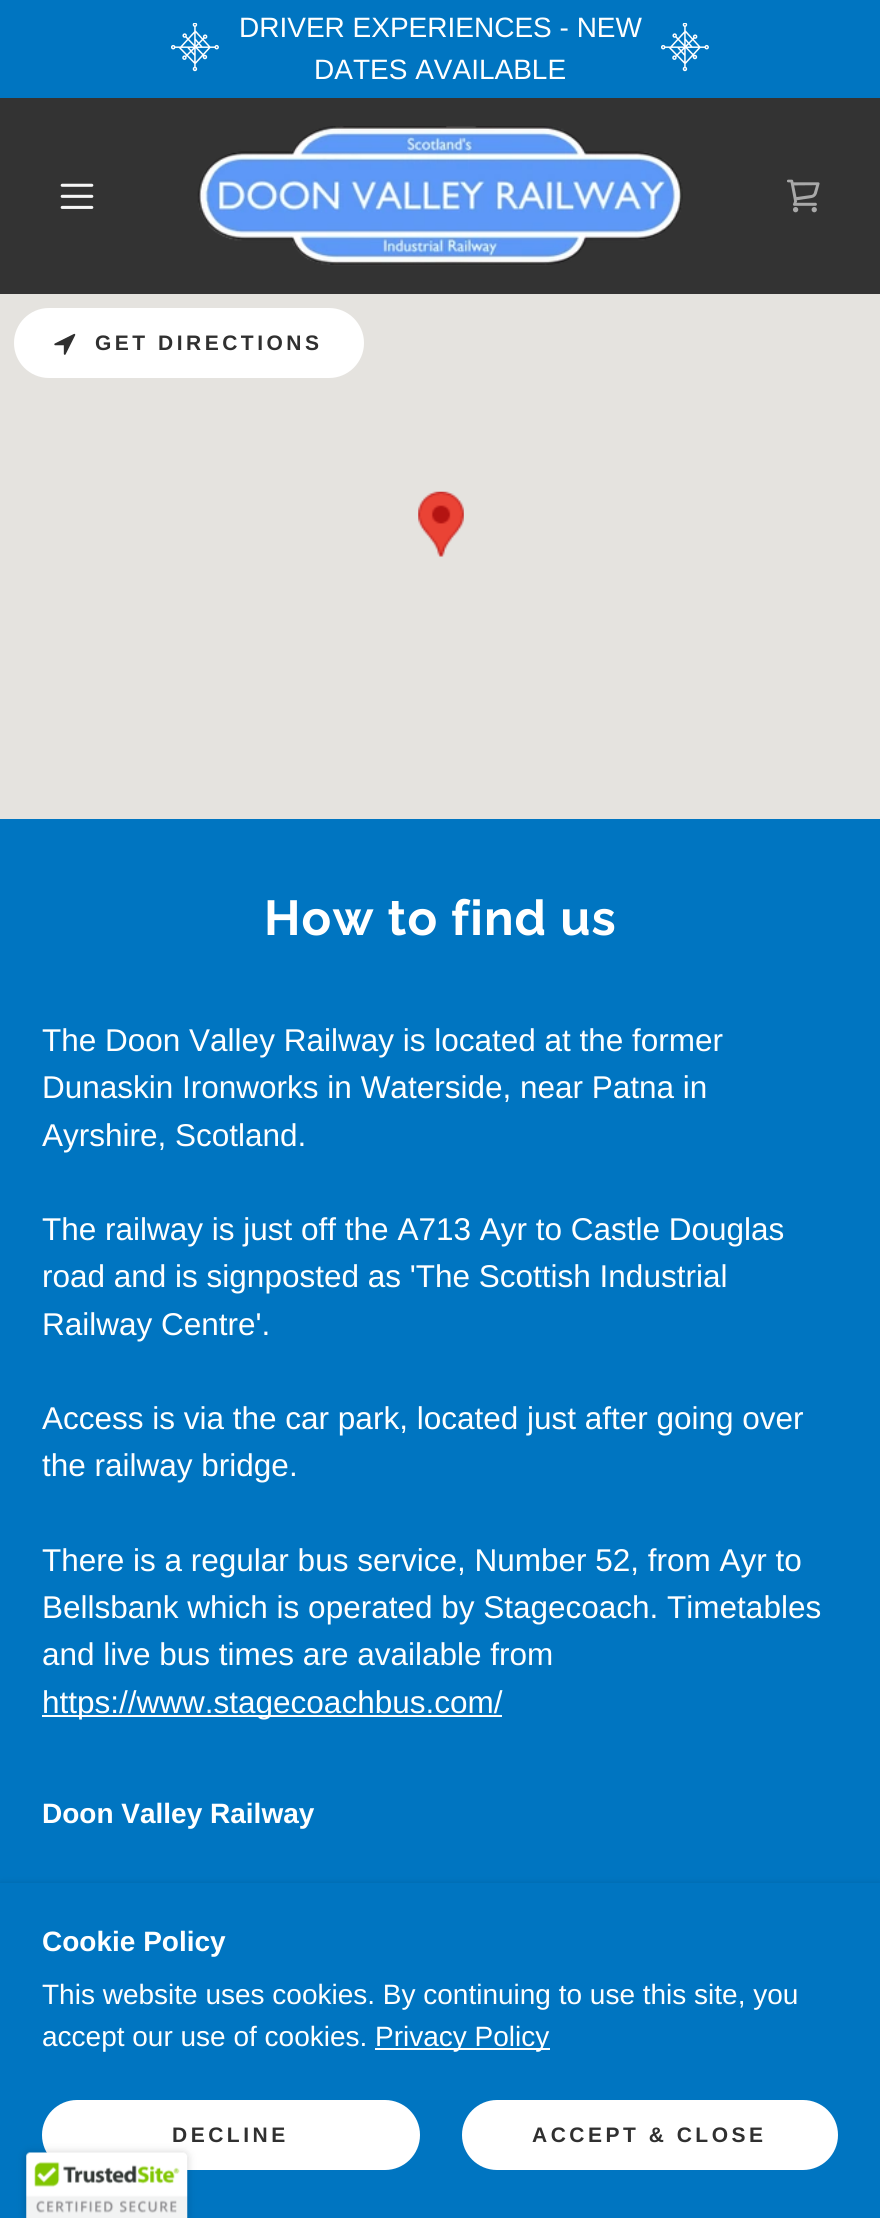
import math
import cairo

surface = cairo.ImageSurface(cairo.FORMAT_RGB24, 880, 2218)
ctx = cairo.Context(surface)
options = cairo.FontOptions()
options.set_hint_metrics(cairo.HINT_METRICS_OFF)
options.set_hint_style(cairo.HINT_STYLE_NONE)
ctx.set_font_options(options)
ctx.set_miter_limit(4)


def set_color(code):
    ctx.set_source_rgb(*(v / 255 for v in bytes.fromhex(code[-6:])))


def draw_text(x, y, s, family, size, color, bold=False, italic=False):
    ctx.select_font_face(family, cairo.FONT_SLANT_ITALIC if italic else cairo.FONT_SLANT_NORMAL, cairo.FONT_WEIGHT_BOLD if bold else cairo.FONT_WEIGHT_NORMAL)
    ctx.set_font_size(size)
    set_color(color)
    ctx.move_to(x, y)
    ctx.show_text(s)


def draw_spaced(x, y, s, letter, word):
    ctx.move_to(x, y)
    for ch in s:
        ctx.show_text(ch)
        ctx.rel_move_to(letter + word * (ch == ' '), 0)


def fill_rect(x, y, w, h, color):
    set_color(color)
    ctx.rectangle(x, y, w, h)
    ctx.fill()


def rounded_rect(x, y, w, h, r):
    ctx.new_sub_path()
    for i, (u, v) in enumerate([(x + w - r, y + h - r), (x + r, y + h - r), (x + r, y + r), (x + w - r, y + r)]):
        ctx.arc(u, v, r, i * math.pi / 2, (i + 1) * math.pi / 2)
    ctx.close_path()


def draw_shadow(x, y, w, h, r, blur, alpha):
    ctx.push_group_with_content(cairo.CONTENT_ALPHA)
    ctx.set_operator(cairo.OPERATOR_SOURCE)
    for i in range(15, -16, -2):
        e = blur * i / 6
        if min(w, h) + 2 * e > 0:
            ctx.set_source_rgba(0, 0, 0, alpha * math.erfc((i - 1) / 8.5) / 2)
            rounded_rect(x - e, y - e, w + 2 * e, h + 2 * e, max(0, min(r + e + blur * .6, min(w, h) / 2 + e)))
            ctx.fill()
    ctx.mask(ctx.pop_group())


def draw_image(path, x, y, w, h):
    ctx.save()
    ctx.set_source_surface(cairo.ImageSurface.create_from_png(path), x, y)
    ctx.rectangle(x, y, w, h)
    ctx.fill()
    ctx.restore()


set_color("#0075c1")
ctx.paint()
draw_image("assets/img1.png", 171, 23, 48, 49)
draw_text(239, 37, "DRIVER EXPERIENCES - NEW", "Liberation Sans", 28, "#ffffff")
draw_text(314, 79, "DATES AVAILABLE", "Liberation Sans", 28, "#ffffff")
draw_image("assets/img1.png", 661, 23, 48, 49)
fill_rect(0, 98, 880, 196, "#333333")
draw_image("assets/img2.png", 60, 183, 34, 26)
draw_image("assets/img3.png", 197, 126, 486, 140)
draw_image("assets/img4.png", 787, 179, 33, 34)
fill_rect(0, 294, 880, 525, "#e5e3df")
draw_image("assets/img5.png", 418, 491, 46, 66)
set_color("#ffffff")
rounded_rect(14, 308, 350, 70, 35)
ctx.fill()
draw_image("assets/img6.png", 54, 333, 22, 22)
ctx.select_font_face("Liberation Sans", cairo.FONT_SLANT_NORMAL, cairo.FONT_WEIGHT_BOLD)
ctx.set_font_size(21)
set_color("#303030")
draw_spaced(95, 350, "GET DIRECTIONS", 3.5, 0)
ctx.select_font_face("Raleway", cairo.FONT_SLANT_NORMAL, cairo.FONT_WEIGHT_BOLD)
ctx.set_font_size(49)
set_color("#ffffff")
draw_spaced(264, 935, "How to find us", 1.1, 0)
draw_text(42, 1051, "The Doon Valley Railway is located at the former", "Liberation Sans", 31.5, "#ffffff")
draw_text(42, 1098, "Dunaskin Ironworks in Waterside, near Patna in", "Liberation Sans", 31.5, "#ffffff")
draw_text(42, 1146, "Ayrshire, Scotland.", "Liberation Sans", 31.5, "#ffffff")
draw_text(42, 1240, "The railway is just off the A713 Ayr to Castle Douglas", "Liberation Sans", 31.5, "#ffffff")
draw_text(42, 1287, "road and is signposted as 'The Scottish Industrial", "Liberation Sans", 31.5, "#ffffff")
draw_text(42, 1335, "Railway Centre'.", "Liberation Sans", 31.5, "#ffffff")
draw_text(42, 1429, "Access is via the car park, located just after going over", "Liberation Sans", 31.5, "#ffffff")
draw_text(42, 1476, "the railway bridge.", "Liberation Sans", 31.5, "#ffffff")
draw_text(42, 1571, "There is a regular bus service, Number 52, from Ayr to", "Liberation Sans", 31.5, "#ffffff")
draw_text(42, 1618, "Bellsbank which is operated by Stagecoach. Timetables", "Liberation Sans", 31.5, "#ffffff")
draw_text(42, 1665, "and live bus times are available from", "Liberation Sans", 31.5, "#ffffff")
fill_rect(42, 1715, 460, 2, "#ffffff")
draw_text(42, 1713, "https://www.stagecoachbus.com/", "Liberation Sans", 31.5, "#ffffff")
draw_text(42, 1823, "Doon Valley Railway", "Liberation Sans", 28, "#ffffff", bold=True)
set_color("#000000")
draw_shadow(0, 1887, 880, 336, 0, 5, 0.3)
fill_rect(0, 1883, 880, 335, "#0075c1")
draw_text(42, 1951, "Cookie Policy", "Liberation Sans", 28, "#ffffff", bold=True)
draw_text(42, 2004, "This website uses cookies. By continuing to use this site, you", "Liberation Sans", 28, "#ffffff")
draw_text(42, 2046, "accept our use of cookies.", "Liberation Sans", 28, "#ffffff")
fill_rect(375, 2048, 175, 2, "#ffffff")
draw_text(375, 2046, "Privacy Policy", "Liberation Sans", 28, "#ffffff")
rounded_rect(42, 2100, 378, 70, 35)
ctx.fill()
ctx.select_font_face("Liberation Sans", cairo.FONT_SLANT_NORMAL, cairo.FONT_WEIGHT_BOLD)
ctx.set_font_size(21)
set_color("#303030")
draw_spaced(172, 2142, "DECLINE", 3.5, 0)
set_color("#ffffff")
rounded_rect(462, 2100, 376, 70, 35)
ctx.fill()
set_color("#303030")
draw_spaced(532, 2142, "ACCEPT & CLOSE", 3.5, 0)
set_color("#000000")
draw_shadow(26, 2153, 161, 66, 4, 4.5, 0.2)
draw_image("assets/img7.png", 26, 2152, 162, 66)
surface.write_to_png("output.png")
